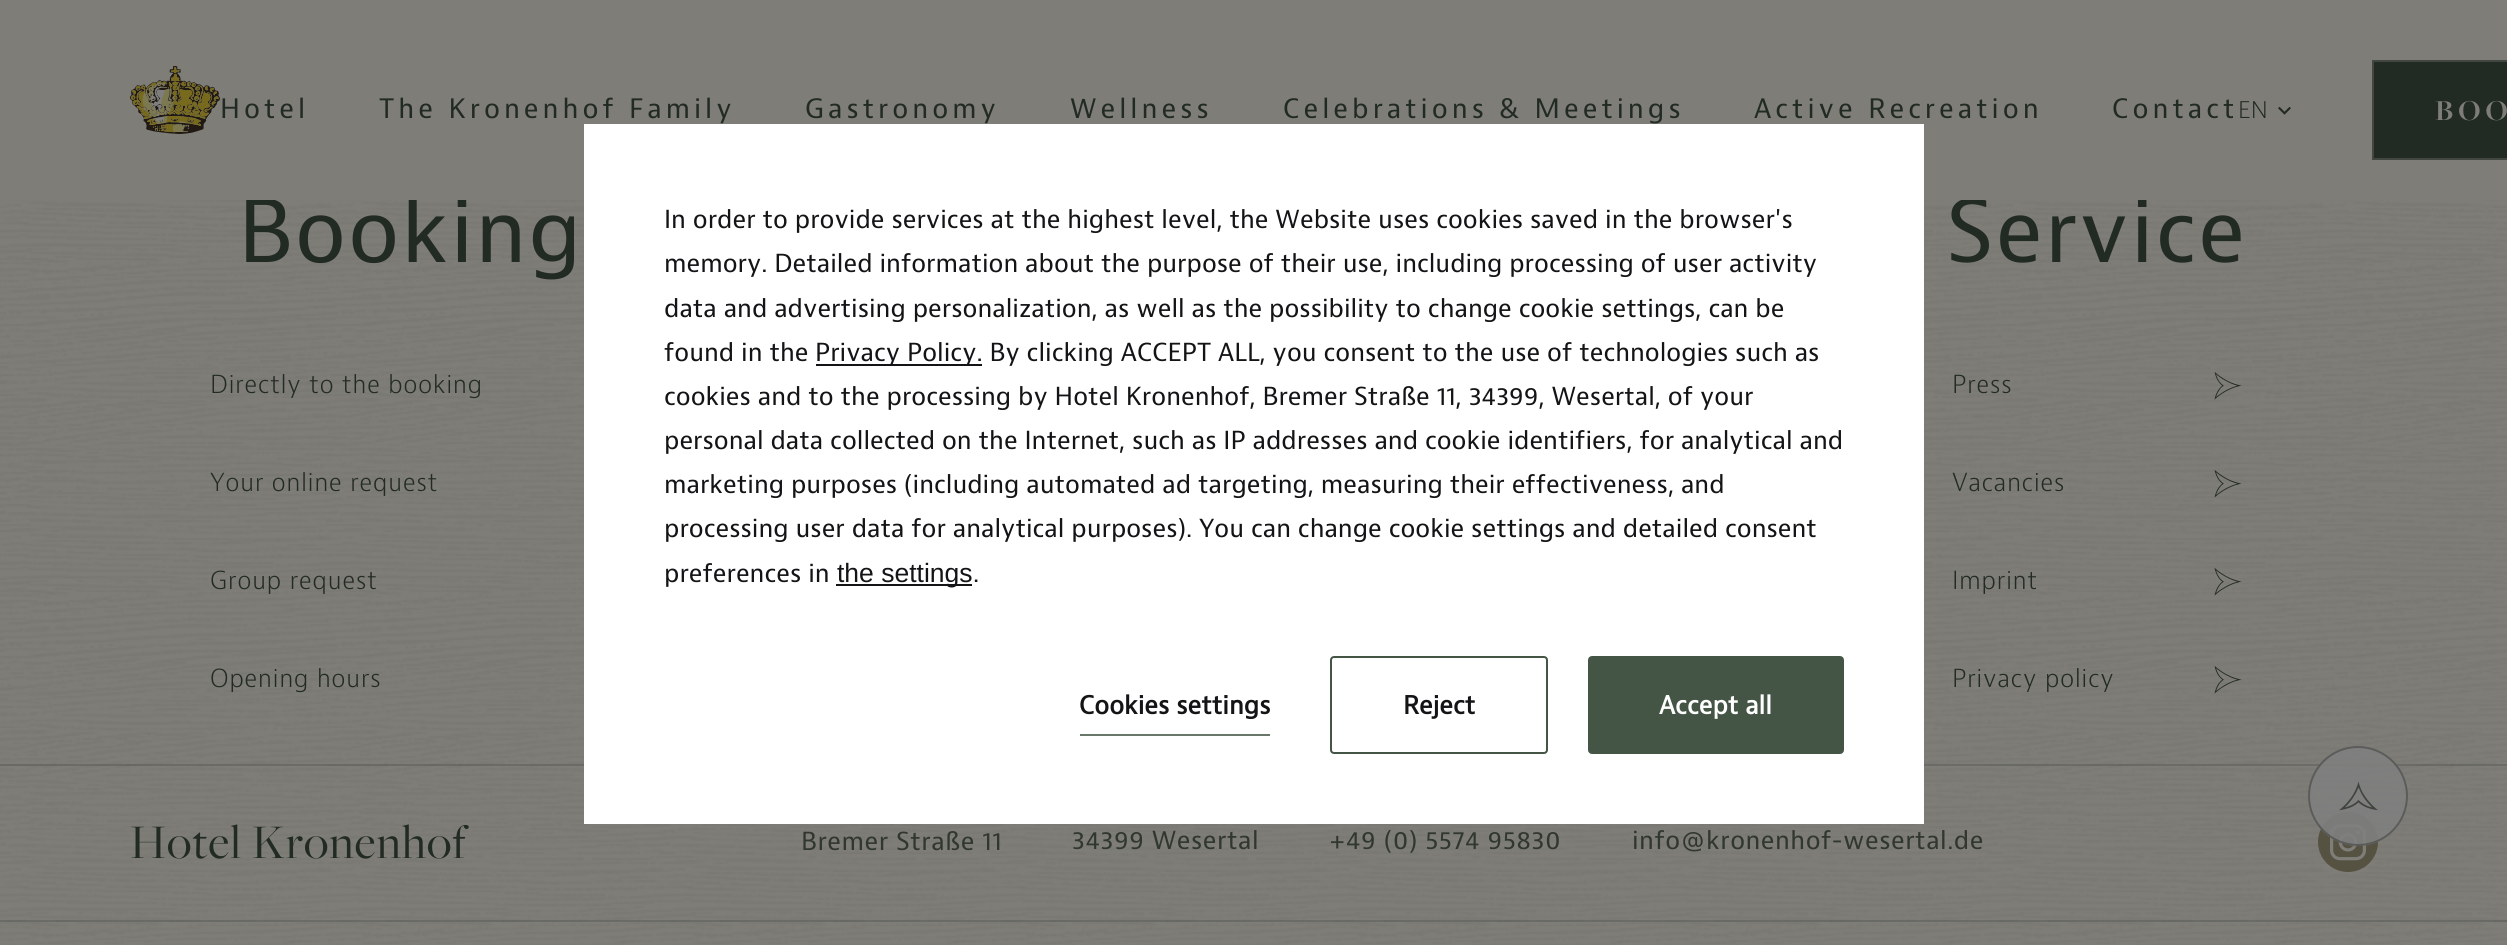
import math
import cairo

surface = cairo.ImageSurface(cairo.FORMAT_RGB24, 2507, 945)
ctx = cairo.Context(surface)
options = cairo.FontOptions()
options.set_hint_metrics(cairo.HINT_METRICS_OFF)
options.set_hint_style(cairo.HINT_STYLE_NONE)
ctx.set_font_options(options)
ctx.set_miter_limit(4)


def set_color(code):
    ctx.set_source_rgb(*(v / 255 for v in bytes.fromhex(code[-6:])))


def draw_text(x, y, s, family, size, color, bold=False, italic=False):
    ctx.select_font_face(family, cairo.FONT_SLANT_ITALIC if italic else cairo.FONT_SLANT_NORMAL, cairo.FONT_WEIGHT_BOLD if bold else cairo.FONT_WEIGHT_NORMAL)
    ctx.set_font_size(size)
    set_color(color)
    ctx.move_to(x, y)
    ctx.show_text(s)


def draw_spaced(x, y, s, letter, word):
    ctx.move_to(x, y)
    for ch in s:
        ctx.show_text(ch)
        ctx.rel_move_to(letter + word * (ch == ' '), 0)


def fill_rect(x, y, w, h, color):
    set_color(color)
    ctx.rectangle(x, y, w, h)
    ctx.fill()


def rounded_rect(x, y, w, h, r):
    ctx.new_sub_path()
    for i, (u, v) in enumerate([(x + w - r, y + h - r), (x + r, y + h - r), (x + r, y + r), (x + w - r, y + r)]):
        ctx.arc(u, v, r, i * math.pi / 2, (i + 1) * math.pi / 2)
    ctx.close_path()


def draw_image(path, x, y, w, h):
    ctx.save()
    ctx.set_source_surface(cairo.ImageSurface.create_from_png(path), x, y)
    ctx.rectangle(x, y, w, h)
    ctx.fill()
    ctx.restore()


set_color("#7e7d78")
ctx.paint()
draw_image("assets/img7.png", 0, 200, 2507, 745)
ctx.select_font_face("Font")
ctx.set_font_size(90)
set_color("#222b23")
draw_spaced(238, 262, "Booking", 1.75, 0)
draw_spaced(1946, 262, "Service", 1.75, 0)
fill_rect(246, 196, 1901, 4, "#7e7d78")
draw_image("assets/img1.png", 130, 66, 90, 68)
ctx.set_font_size(28)
set_color("#222b23")
draw_spaced(220, 118, "Hotel", 4, 0)
draw_spaced(379, 118, "The Kronenhof Family", 4, 0)
draw_spaced(805, 118, "Gastronomy", 4, 0)
draw_spaced(1070, 118, "Wellness", 4, 0)
draw_spaced(1283, 118, "Celebrations & Meetings", 4, 0)
draw_spaced(1754, 118, "Active Recreation", 4, 0)
draw_spaced(2112, 118, "Contact", 4, 0)
draw_text(2238, 118, "EN", "Font Light", 24, "#222b23")
draw_image("assets/img2.png", 2278, 106, 13, 9)
ctx.rectangle(2373, 61, 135, 98)
ctx.fill_preserve()
set_color("#424841")
ctx.stroke()
ctx.select_font_face("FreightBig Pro", cairo.FONT_SLANT_NORMAL, cairo.FONT_WEIGHT_BOLD)
ctx.set_font_size(30)
set_color("#7e7d78")
draw_spaced(2435, 120, "BOO", 5, 0)
ctx.select_font_face("Font Light")
ctx.set_font_size(26)
set_color("#222b23")
draw_spaced(210, 393, "Directly to the booking", 0.5, 0)
draw_spaced(210, 491, "Your online request", 0.5, 0)
draw_spaced(210, 589, "Group request", 0.5, 0)
draw_spaced(210, 687, "Opening hours", 0.5, 0)
draw_spaced(1952, 393, "Press", 0.5, 0)
draw_image("assets/img3.png", 2214, 371, 28, 29)
draw_spaced(1952, 491, "Vacancies", 0.5, 0)
draw_image("assets/img4.png", 2214, 469, 28, 29)
draw_spaced(1952, 589, "Imprint", 0.5, 0)
draw_image("assets/img5.png", 2214, 567, 28, 29)
draw_spaced(1952, 687, "Privacy policy", 0.5, 0)
draw_image("assets/img6.png", 2214, 665, 28, 29)
ctx.set_source_rgba(0.133, 0.169, 0.137, 0.2)
ctx.rectangle(0, 764, 2507, 2)
ctx.fill()
ctx.select_font_face("FreightBig Pro")
ctx.set_font_size(50)
set_color("#222b23")
draw_spaced(130, 858, "Hotel Kronenhof", 1, 0)
ctx.select_font_face("Font")
ctx.set_font_size(26)
set_color("#30372f")
draw_spaced(801, 850, "Bremer Straße 11", 0.5, 0)
draw_spaced(1072, 849, "34399 Wesertal", 0.5, 0)
draw_spaced(1329, 849, "+49 (0) 5574 95830", 0.5, 0)
draw_spaced(1632, 849, "info@kronenhof-wesertal.de", 0.5, 0)
set_color("#565242")
ctx.new_path()
ctx.arc(2348, 842, 30, 0, 2 * math.pi)
ctx.fill()
draw_image("assets/img8.png", 2330, 824, 36, 37)
ctx.set_source_rgba(0.133, 0.169, 0.137, 0.2)
ctx.rectangle(0, 920, 2507, 2)
ctx.fill()
ctx.set_source_rgba(0.502, 0.502, 0.502, 0.7)
ctx.arc(2358, 796, 50, 0, 2 * math.pi)
ctx.fill()
ctx.arc(2358, 796, 50, 0, 2 * math.pi)
ctx.fill()
ctx.arc(2358, 796, 49, 0, 2 * math.pi)
ctx.set_source_rgba(0, 0, 0, 0.28)
ctx.stroke()
draw_image("assets/img9.png", 2339, 781, 39, 30)
fill_rect(584, 124, 1340, 700, "#ffffff")
draw_text(664, 228, "In order to provide services at the highest level, the Website uses cookies saved in the browser's", "Font", 26, "#141416")
draw_text(664, 272, "memory. Detailed information about the purpose of their use, including processing of user activity", "Font", 26, "#141416")
draw_text(664, 317, "data and advertising personalization, as well as the possibility to change cookie settings, can be", "Font", 26, "#141416")
draw_text(664, 361, "found in the", "Font", 26, "#141416")
fill_rect(816, 364, 166, 2, "#141416")
draw_text(815, 361, "Privacy Policy. By clicking ACCEPT ALL, you consent to the use of technologies such as", "Font", 26, "#141416")
draw_text(664, 405, "cookies and to the processing by Hotel Kronenhof, Bremer Straße 11, 34399, Wesertal, of your", "Font", 26, "#141416")
draw_text(664, 449, "personal data collected on the Internet, such as IP addresses and cookie identifiers, for analytical and", "Font", 26, "#141416")
draw_text(664, 493, "marketing purposes (including automated ad targeting, measuring their effectiveness, and", "Font", 26, "#141416")
draw_text(664, 537, "processing user data for analytical purposes). You can change cookie settings and detailed consent", "Font", 26, "#141416")
draw_text(664, 582, "preferences in", "Font", 26, "#141416")
fill_rect(836, 584, 136, 2, "#141416")
draw_text(837, 582, "the settings", "Liberation Sans", 26.5, "#141416")
draw_text(973, 582, ".", "Font", 26, "#141416")
draw_text(1079, 714, "Cookies settings", "Font", 26, "#141416", bold=True)
fill_rect(1080, 734, 190, 2, "#69776a")
rounded_rect(1331, 657, 216, 96, 3)
set_color("#445545")
ctx.stroke()
draw_text(1403, 714, "Reject", "Font", 26, "#141416", bold=True)
rounded_rect(1589, 657, 254, 96, 3)
set_color("#445545")
ctx.stroke()
fill_rect(1590, 658, 252, 94, "#445545")
draw_text(1659, 714, "Accept all", "Font", 26, "#ffffff", bold=True)
surface.write_to_png("output.png")
